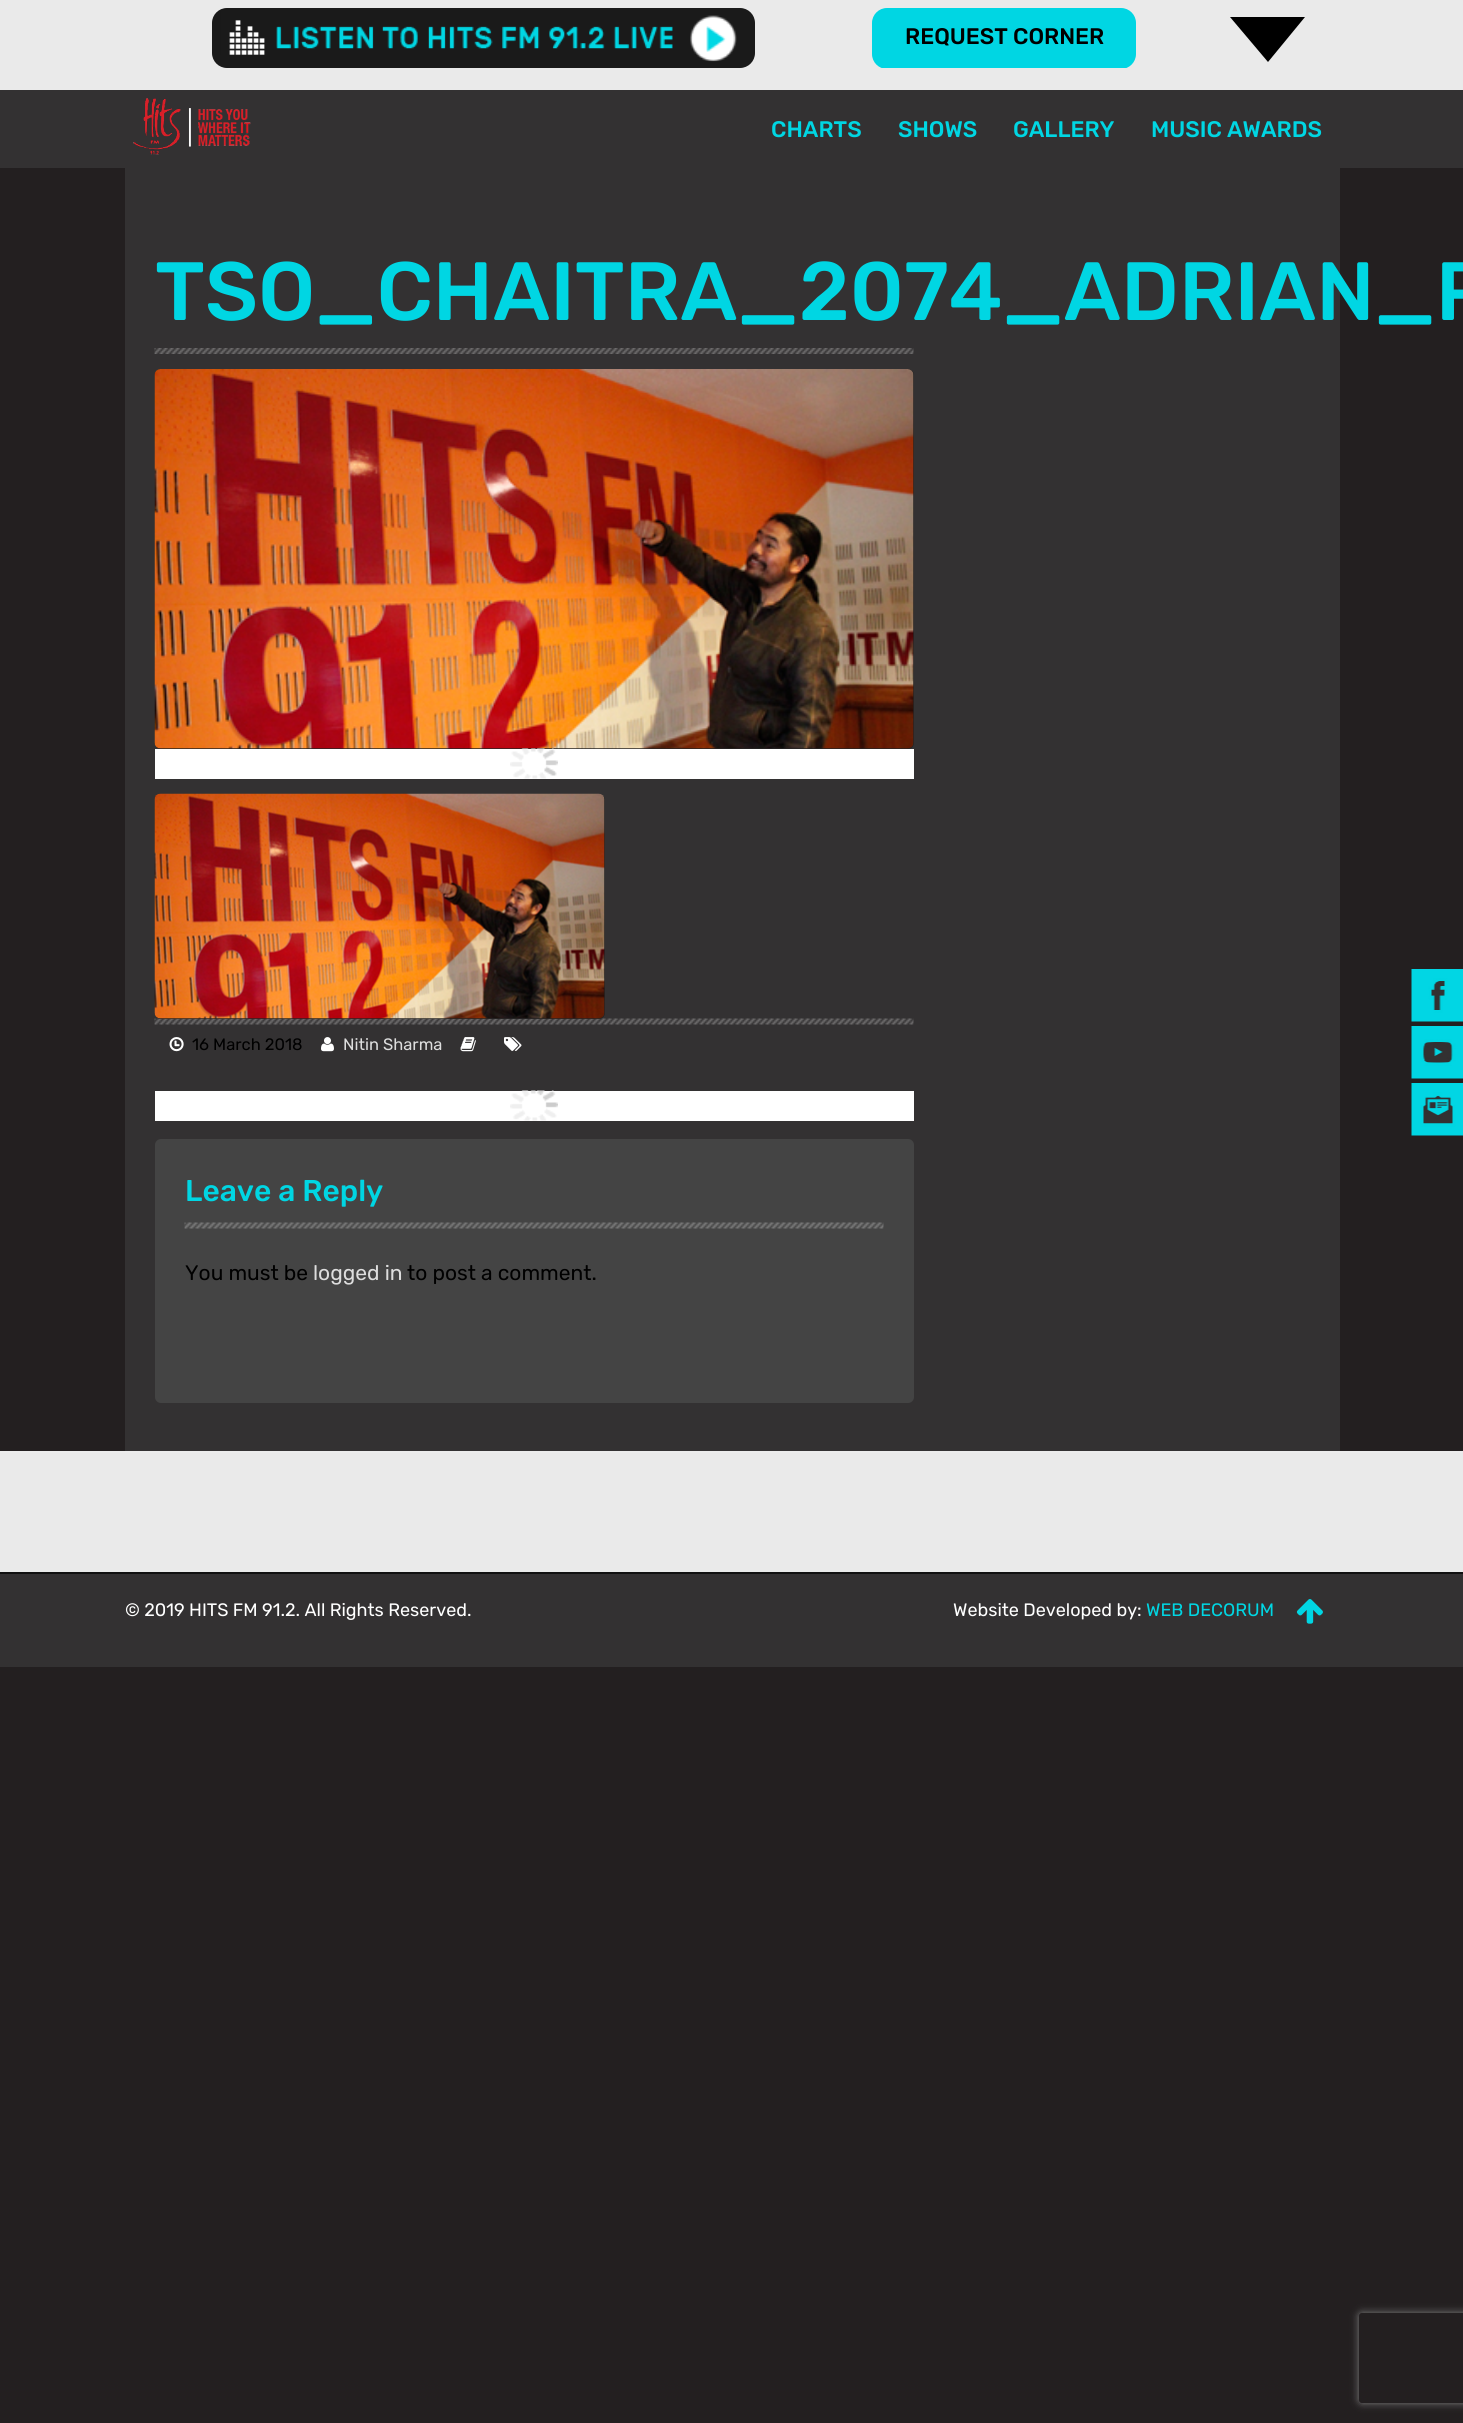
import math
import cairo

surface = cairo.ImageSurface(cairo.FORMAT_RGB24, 1463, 2423)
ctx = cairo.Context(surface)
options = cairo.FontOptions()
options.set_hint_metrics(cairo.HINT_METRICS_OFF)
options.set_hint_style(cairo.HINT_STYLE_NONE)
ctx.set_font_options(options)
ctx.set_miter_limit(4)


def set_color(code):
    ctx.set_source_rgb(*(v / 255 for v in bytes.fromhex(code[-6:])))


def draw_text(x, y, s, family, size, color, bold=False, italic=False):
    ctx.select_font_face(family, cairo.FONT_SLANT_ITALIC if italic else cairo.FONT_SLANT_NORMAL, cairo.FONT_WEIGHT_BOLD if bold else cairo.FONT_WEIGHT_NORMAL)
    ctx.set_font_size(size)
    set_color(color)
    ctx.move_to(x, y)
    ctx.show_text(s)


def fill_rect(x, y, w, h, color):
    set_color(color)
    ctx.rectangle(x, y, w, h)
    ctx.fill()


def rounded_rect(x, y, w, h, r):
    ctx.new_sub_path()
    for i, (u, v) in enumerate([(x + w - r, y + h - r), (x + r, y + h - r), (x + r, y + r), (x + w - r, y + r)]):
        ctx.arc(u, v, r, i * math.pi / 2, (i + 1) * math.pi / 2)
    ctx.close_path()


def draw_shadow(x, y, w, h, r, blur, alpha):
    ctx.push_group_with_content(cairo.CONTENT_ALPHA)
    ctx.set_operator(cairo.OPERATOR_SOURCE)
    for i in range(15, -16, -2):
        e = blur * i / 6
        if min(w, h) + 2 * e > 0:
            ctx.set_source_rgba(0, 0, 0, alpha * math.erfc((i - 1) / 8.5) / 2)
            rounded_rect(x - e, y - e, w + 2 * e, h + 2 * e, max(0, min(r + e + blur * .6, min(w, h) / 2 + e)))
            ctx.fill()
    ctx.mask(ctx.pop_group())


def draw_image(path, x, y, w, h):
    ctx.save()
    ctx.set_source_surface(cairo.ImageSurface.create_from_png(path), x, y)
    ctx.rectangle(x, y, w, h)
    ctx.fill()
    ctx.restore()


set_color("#231f20")
ctx.paint()
fill_rect(0, 0, 1463, 90, "#eaeaea")
set_color("#1a1a1a")
rounded_rect(212, 8, 543, 60, 15)
ctx.fill()
draw_image("assets/img1.png", 220, 9, 45, 46)
draw_image("assets/img2.png", 690, 15, 47, 47)
draw_image("assets/img3.png", 276, 26, 397, 23)
ctx.save()
ctx.rectangle(809, 8, 408, 60)
ctx.clip()
set_color("#00d6e3")
rounded_rect(872, 8, 264, 61, 15)
ctx.fill()
ctx.restore()
draw_text(905, 44, "REQUEST CORNER", "Rubik Medium", 22.5, "#000000")
ctx.new_path()
ctx.move_to(1230, 17)
ctx.line_to(1305, 17)
ctx.line_to(1268, 62)
ctx.close_path()
ctx.fill()
fill_rect(0, 90, 1463, 78, "#333132")
draw_image("assets/img4.png", 133, 98, 118, 57)
draw_text(771, 137, "CHARTS", "Rubik Medium", 22.5, "#00d6e3")
draw_text(898, 137, "SHOWS", "Rubik Medium", 22.5, "#00d6e3")
draw_text(1013, 137, "GALLERY", "Rubik Medium", 22.5, "#00d6e3")
draw_text(1151, 137, "MUSIC AWARDS", "Rubik Medium", 22.5, "#00d6e3")
fill_rect(125, 168, 1215, 1283, "#333132")
draw_image("assets/img5.png", 154, 348, 760, 6)
draw_text(155, 320, "TSO_CHAITRA_2074_ADRIAN_P", "Rubik Medium", 82.5, "#00d6e3")
set_color("#252424")
rounded_rect(155, 369, 759, 380, 6)
ctx.fill()
draw_image("assets/img6.png", 154, 369, 760, 380)
fill_rect(155, 749, 759, 30, "#ffffff")
draw_image("assets/img7.png", 510, 748, 48, 31)
draw_image("assets/img9.png", 154, 1018, 760, 7)
ctx.set_source_rgba(0.129, 0.129, 0.129, 0.8)
rounded_rect(155, 794, 450, 225, 6)
ctx.fill()
draw_image("assets/img8.png", 154, 793, 451, 226)
draw_image("assets/img10.png", 169, 1037, 15, 15)
draw_text(192, 1050, "16 March 2018", "Rubik", 16.5, "#000000")
draw_image("assets/img11.png", 321, 1037, 13, 15)
draw_text(343, 1050, "Nitin Sharma", "Rubik", 16.5, "#dddddd")
draw_image("assets/img12.png", 460, 1037, 16, 15)
draw_image("assets/img13.png", 504, 1037, 18, 14)
fill_rect(155, 1091, 759, 30, "#ffffff")
draw_image("assets/img14.png", 510, 1090, 48, 31)
set_color("#444444")
rounded_rect(155, 1139, 759, 264, 6)
ctx.fill()
draw_image("assets/img15.png", 184, 1222, 700, 7)
draw_text(185, 1201, "Leave a Reply", "Rubik Medium", 30, "#00d6e3")
draw_text(185, 1280, "You must be", "Rubik", 21, "#000000")
draw_text(313, 1280, "logged in", "Rubik", 21, "#dddddd")
draw_text(407, 1280, "to post a comment.", "Rubik", 21, "#000000")
draw_image("assets/img16.png", 1411, 969, 52, 53)
draw_image("assets/img17.png", 1411, 1026, 52, 53)
draw_image("assets/img18.png", 1411, 1083, 52, 53)
fill_rect(0, 1453, 1463, 119, "#eaeaea")
fill_rect(0, 1451, 1463, 2, "#ececec")
fill_rect(0, 1574, 1463, 93, "#333132")
fill_rect(0, 1572, 1463, 2, "#111111")
draw_text(125, 1616, "© 2019 HITS FM 91.2. All Rights Reserved.", "Rubik", 18, "#ffffff")
draw_text(953, 1616, "Website Developed by:", "Rubik", 18, "#ffffff")
draw_text(1146, 1616, "WEB DECORUM", "Rubik", 18, "#00d6e3")
draw_image("assets/img19.png", 1296, 1599, 27, 25)
ctx.save()
ctx.set_fill_rule(cairo.FILL_RULE_EVEN_ODD)
ctx.new_path()
ctx.move_to(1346, 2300)
ctx.line_to(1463, 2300)
ctx.line_to(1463, 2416)
ctx.line_to(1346, 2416)
ctx.close_path()
ctx.move_to(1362, 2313)
ctx.line_to(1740, 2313)
ctx.curve_to(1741.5, 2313, 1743, 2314.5, 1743, 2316)
ctx.line_to(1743, 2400)
ctx.curve_to(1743, 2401.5, 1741.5, 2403, 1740, 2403)
ctx.line_to(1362, 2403)
ctx.curve_to(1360.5, 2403, 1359, 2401.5, 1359, 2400)
ctx.line_to(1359, 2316)
ctx.curve_to(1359, 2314.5, 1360.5, 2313, 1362, 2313)
ctx.close_path()
ctx.clip()
set_color("#808080")
draw_shadow(1359, 2313, 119, 90, 3, 4, 1)
ctx.restore()
surface.write_to_png("output.png")
